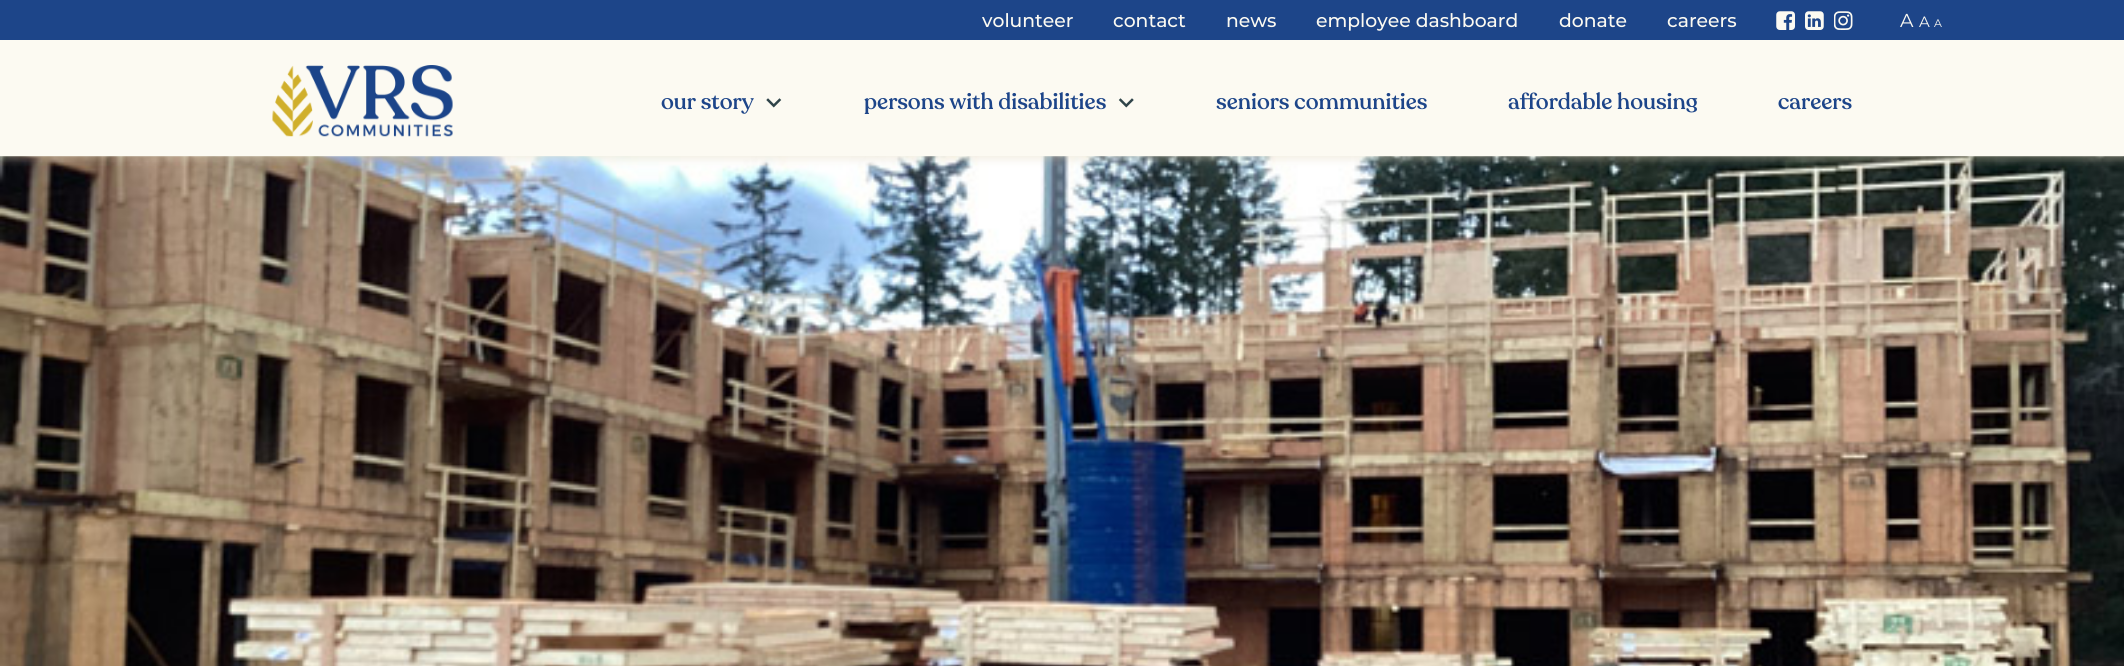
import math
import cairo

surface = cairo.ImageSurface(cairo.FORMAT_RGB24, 2124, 666)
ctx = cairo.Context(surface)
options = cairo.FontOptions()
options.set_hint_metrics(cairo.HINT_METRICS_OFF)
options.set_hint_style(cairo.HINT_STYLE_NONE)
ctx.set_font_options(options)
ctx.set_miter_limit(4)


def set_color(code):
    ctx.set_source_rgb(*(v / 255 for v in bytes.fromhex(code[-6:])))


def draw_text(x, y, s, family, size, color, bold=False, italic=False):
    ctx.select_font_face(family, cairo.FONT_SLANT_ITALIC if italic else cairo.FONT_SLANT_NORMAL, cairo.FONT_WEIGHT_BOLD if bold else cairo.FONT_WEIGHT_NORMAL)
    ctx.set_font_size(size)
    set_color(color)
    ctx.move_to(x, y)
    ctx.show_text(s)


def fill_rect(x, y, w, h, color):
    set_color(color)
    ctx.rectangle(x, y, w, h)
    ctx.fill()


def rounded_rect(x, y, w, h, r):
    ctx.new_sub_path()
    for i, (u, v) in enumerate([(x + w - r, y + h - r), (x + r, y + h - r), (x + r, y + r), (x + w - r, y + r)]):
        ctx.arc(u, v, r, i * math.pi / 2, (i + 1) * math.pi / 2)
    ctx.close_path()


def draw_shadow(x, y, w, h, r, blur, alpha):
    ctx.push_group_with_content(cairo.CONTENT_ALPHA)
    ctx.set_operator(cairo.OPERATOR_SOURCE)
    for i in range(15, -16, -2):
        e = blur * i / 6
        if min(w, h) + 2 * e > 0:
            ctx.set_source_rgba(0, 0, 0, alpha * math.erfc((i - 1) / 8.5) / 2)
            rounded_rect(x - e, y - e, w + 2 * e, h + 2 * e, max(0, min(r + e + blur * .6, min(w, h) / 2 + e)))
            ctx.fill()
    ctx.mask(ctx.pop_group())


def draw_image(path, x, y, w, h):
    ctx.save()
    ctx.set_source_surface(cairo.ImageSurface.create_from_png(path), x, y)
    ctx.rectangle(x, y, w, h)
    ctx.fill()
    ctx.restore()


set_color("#ffffff")
ctx.paint()
draw_image("assets/img7.png", 0, 156, 2124, 510)
set_color("#e3d9bf")
draw_shadow(0, 4, 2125, 156, 0, 4, 0.4)
fill_rect(0, 40, 2124, 116, "#fcfaf2")
draw_image("assets/img1.png", 272, 65, 181, 72)
fill_rect(0, 0, 2124, 40, "#1d4589")
draw_text(982, 27, "volunteer", "Montserrat Medium", 18.75, "#fcfaf2")
draw_text(1113, 27, "contact", "Montserrat Medium", 18.75, "#fcfaf2")
draw_text(1226, 27, "news", "Montserrat Medium", 18.75, "#fcfaf2")
draw_text(1316, 27, "employee dashboard", "Montserrat Medium", 18.75, "#fcfaf2")
draw_text(1559, 27, "donate", "Montserrat Medium", 18.75, "#fcfaf2")
draw_text(1667, 27, "careers", "Montserrat Medium", 18.75, "#fcfaf2")
draw_image("assets/img2.png", 1776, 11, 19, 19)
draw_image("assets/img3.png", 1805, 11, 19, 19)
draw_image("assets/img4.png", 1834, 11, 19, 19)
draw_text(1900, 27, "A", "Montserrat", 18.75, "#fcfaf2")
draw_text(1919, 27, "A", "Montserrat", 15, "#fcfaf2")
draw_text(1934, 27, "A", "Montserrat", 11, "#fcfaf2")
draw_text(661, 109, "our story", "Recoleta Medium", 22.5, "#1d4589")
draw_image("assets/img5.png", 766, 98, 16, 10)
draw_text(864, 109, "persons with disabilities", "Recoleta Medium", 22.5, "#1d4589")
draw_image("assets/img6.png", 1118, 98, 16, 10)
draw_text(1216, 109, "seniors communities", "Recoleta Medium", 22.5, "#1d4589")
draw_text(1508, 109, "affordable housing", "Recoleta Medium", 22.5, "#1d4589")
draw_text(1778, 109, "careers", "Recoleta Medium", 22.5, "#1d4589")
surface.write_to_png("output.png")
